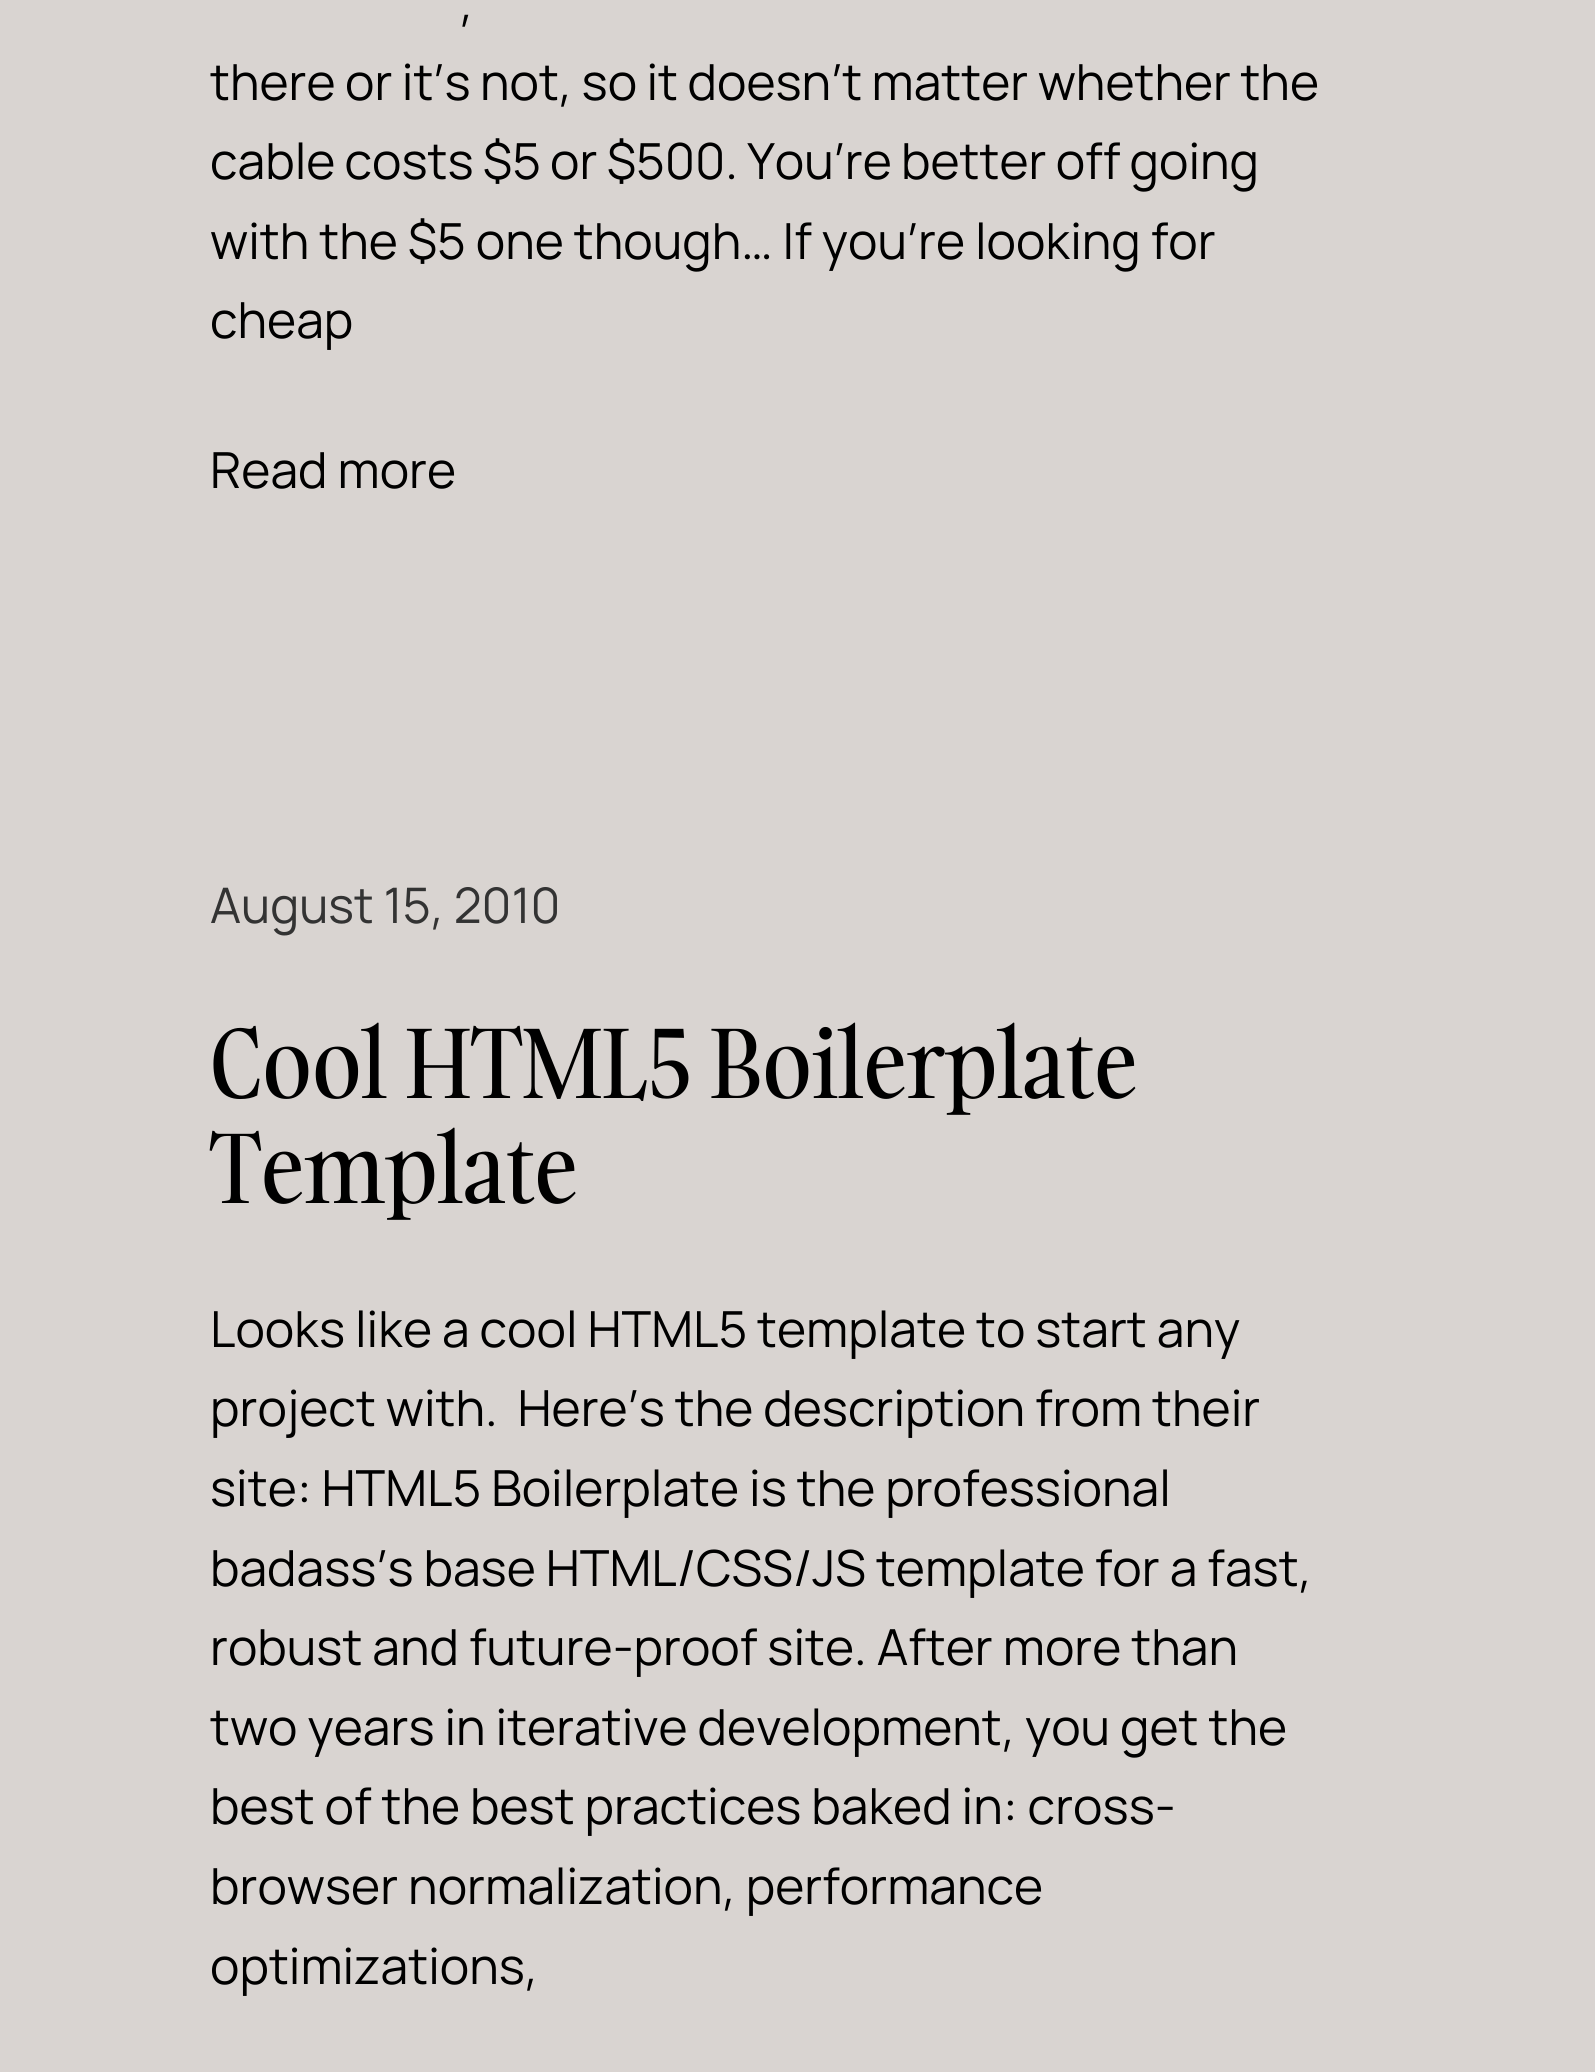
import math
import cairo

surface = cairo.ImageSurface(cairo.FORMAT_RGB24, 1595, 2072)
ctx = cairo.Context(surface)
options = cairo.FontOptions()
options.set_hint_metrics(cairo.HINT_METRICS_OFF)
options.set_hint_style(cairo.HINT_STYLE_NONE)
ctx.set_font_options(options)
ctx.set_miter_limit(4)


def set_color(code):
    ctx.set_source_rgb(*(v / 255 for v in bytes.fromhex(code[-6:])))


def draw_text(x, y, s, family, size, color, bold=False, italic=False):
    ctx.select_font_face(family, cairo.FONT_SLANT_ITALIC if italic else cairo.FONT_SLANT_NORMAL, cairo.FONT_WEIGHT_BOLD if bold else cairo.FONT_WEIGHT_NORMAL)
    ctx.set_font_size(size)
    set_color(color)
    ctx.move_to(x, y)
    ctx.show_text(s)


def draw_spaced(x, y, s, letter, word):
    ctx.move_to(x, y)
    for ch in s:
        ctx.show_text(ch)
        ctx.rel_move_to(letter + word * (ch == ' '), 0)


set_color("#d9d4d1")
ctx.paint()
draw_text(460, 20, ",", "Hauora", 49.75, "#000000")
draw_spaced(210, 100, "there or it’s not, so it doesn’t matter whether the", 0, -0.5)
draw_spaced(210, 179, "cable costs $5 or $500. You’re better off going", 0, -0.75)
draw_text(210, 259, "with the $5 one though… If you’re looking for", "Hauora", 49.75, "#000000")
draw_text(210, 338, "cheap", "Hauora", 49.75, "#000000")
draw_text(210, 488, "Read more", "Hauora", 49.75, "#000000")
draw_text(210, 923, "August 15, 2010", "Hauora", 49, "#333333")
draw_text(210, 1098, "Cool HTML5 Boilerplate", "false", 93.5, "#000000")
draw_text(210, 1203, "Template", "false", 93.5, "#000000")
draw_text(210, 1347, "Looks like a cool HTML5 template to start any", "Hauora", 49.75, "#000000")
draw_text(210, 1426, "project with.  Here’s the description from their", "Hauora", 49.75, "#000000")
draw_text(210, 1506, "site: HTML5 Boilerplate is the professional", "Hauora", 49.75, "#000000")
draw_text(210, 1586, "badass’s base HTML/CSS/JS template for a fast,", "Hauora", 49.75, "#000000")
draw_text(210, 1665, "robust and future-proof site. After more than", "Hauora", 49.75, "#000000")
draw_text(210, 1745, "two years in iterative development, you get the", "Hauora", 49.75, "#000000")
draw_text(210, 1824, "best of the best practices baked in: cross-", "Hauora", 49.75, "#000000")
draw_text(210, 1904, "browser normalization, performance", "Hauora", 49.75, "#000000")
draw_text(210, 1984, "optimizations,", "Hauora", 49.75, "#000000")
surface.write_to_png("output.png")
